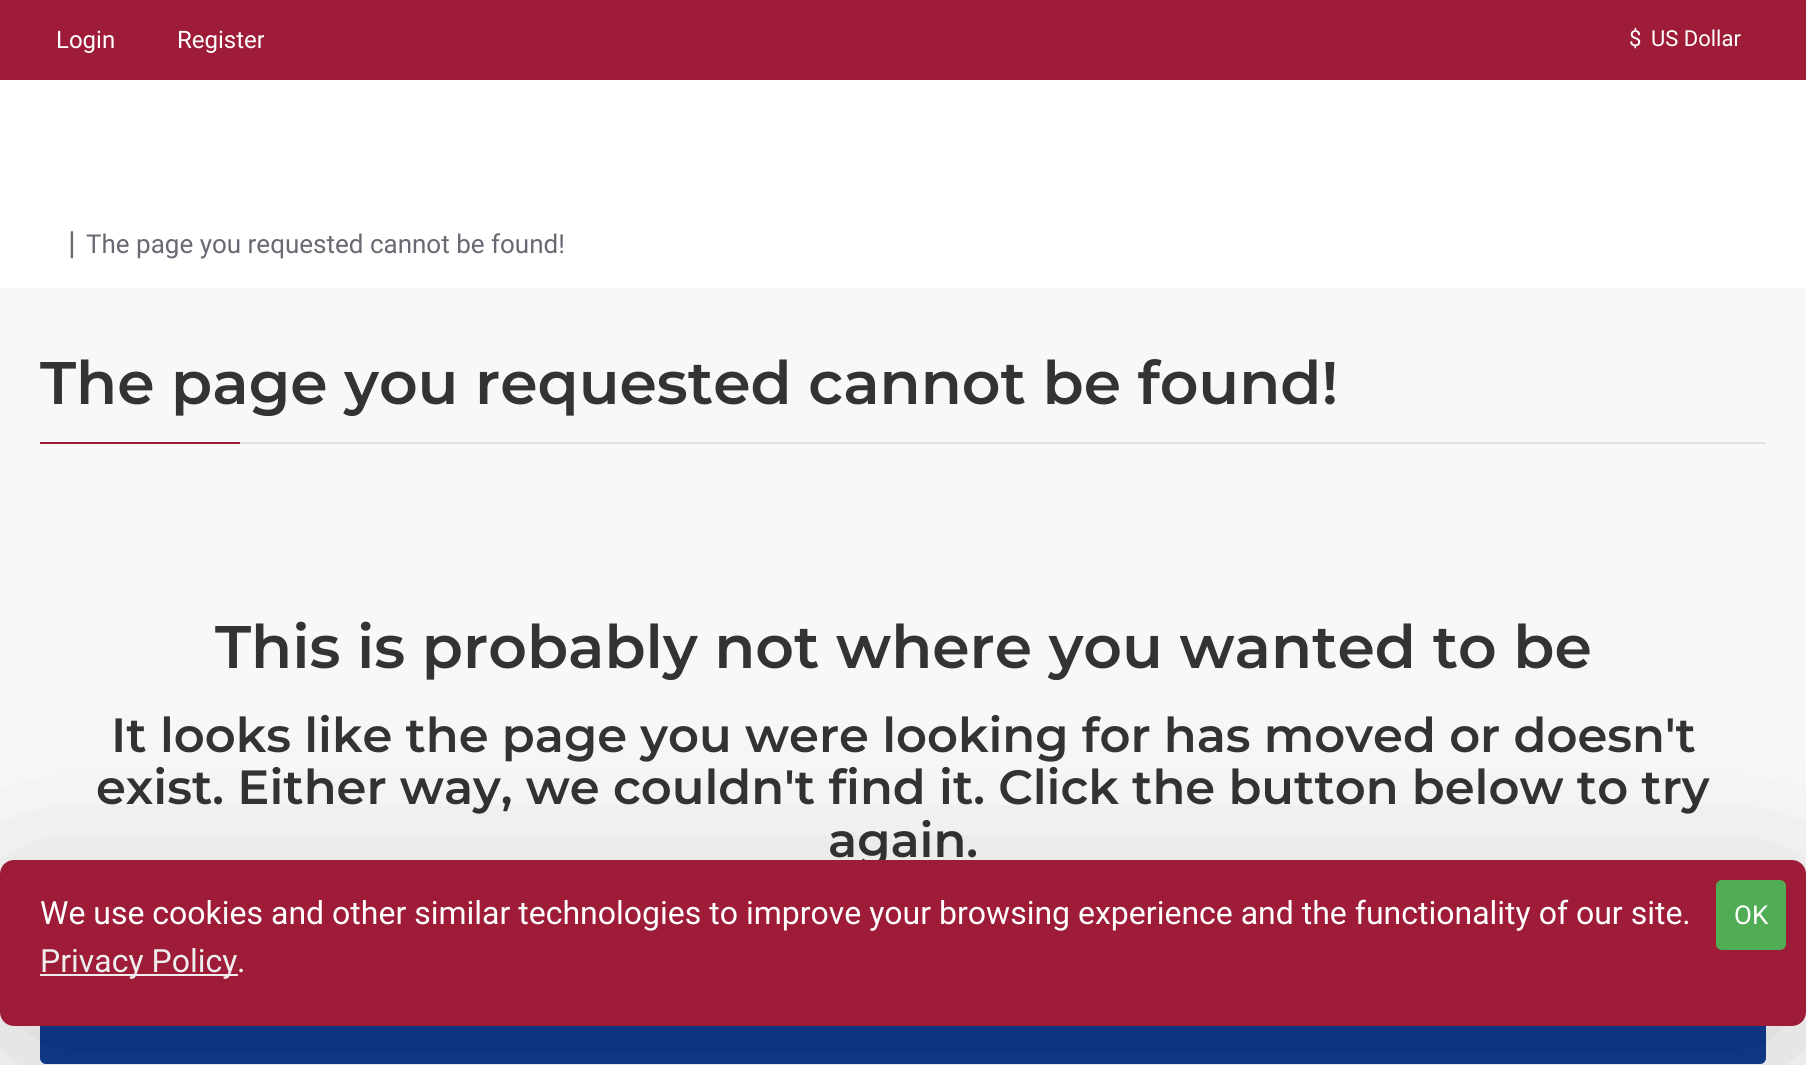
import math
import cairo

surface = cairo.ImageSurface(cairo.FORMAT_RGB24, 1806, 1065)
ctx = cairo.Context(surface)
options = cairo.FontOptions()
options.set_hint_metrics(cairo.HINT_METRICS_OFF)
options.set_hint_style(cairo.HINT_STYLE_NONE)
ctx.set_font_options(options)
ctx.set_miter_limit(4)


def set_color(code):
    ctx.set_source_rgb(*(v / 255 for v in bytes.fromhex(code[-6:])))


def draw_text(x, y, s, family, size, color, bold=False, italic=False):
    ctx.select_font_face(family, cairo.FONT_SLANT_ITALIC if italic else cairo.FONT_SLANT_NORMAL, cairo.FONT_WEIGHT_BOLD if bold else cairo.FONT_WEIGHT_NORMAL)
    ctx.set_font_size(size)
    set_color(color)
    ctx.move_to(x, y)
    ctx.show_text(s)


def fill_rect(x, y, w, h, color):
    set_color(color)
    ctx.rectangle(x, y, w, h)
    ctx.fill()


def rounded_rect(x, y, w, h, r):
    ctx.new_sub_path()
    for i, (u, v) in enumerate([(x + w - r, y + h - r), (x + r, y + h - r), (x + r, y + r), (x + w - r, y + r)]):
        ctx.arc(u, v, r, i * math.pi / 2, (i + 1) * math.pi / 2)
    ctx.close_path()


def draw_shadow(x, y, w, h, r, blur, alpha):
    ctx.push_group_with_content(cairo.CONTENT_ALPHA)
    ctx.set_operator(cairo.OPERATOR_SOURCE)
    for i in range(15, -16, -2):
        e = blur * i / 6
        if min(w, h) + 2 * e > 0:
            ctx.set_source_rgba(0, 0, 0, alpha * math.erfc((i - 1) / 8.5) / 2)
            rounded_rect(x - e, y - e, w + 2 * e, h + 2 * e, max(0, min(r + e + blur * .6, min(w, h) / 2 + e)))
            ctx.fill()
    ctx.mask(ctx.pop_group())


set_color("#f8f8f8")
ctx.paint()
fill_rect(0, 0, 1806, 80, "#9e1c38")
draw_text(56, 48, "Login", "Roboto", 24, "#ffffff")
ctx.save()
ctx.rectangle(176, 22, 88, 36)
ctx.clip()
draw_text(177, 48, "Register", "Roboto", 24, "#ffffff")
ctx.restore()
draw_text(1629, 46, "$", "Roboto", 22, "#ffffff")
draw_text(1651, 46, "US Dollar", "Roboto", 22, "#ffffff")
fill_rect(0, 80, 1806, 208, "#ffffff")
draw_text(68, 254, "|", "Roboto", 32, "#696973")
draw_text(86, 253, "The page you requested cannot be found!", "Roboto", 26, "#696973")
fill_rect(240, 442, 1526, 2, "#e2e2e2")
draw_text(40, 404, "The page you requested cannot be found!", "Montserrat SemiBold", 60, "#333333")
fill_rect(40, 442, 200, 2, "#9e1c38")
draw_text(215, 668, "This is probably not where you wanted to be", "Montserrat SemiBold", 60, "#333333")
draw_text(111, 752, "It looks like the page you were looking for has moved or doesn't", "Montserrat SemiBold", 48, "#333333")
draw_text(96, 804, "exist. Either way, we couldn't find it. Click the button below to try", "Montserrat SemiBold", 48, "#333333")
draw_text(828, 857, "again.", "Montserrat SemiBold", 48, "#333333")
set_color("#0f3a8d")
rounded_rect(40, 986, 1726, 78, 6)
ctx.fill()
set_color("#000000")
draw_shadow(20, 910, 1766, 126, 0, 90, 0.2)
set_color("#9e1c38")
rounded_rect(0, 860, 1806, 166, 14)
ctx.fill()
draw_text(40, 924, "We use cookies and other similar technologies to improve your browsing experience and the functionality of our site.", "Roboto", 32, "#ffffff")
fill_rect(40, 974, 198, 2, "#eeeeee")
draw_text(40, 972, "Privacy Policy", "Roboto", 32, "#eeeeee")
draw_text(237, 972, ".", "Roboto", 32, "#ffffff")
set_color("#50ad55")
rounded_rect(1716, 880, 70, 70, 6)
ctx.fill()
draw_text(1734, 924, "OK", "Roboto", 26, "#ffffff")
surface.write_to_png("output.png")
